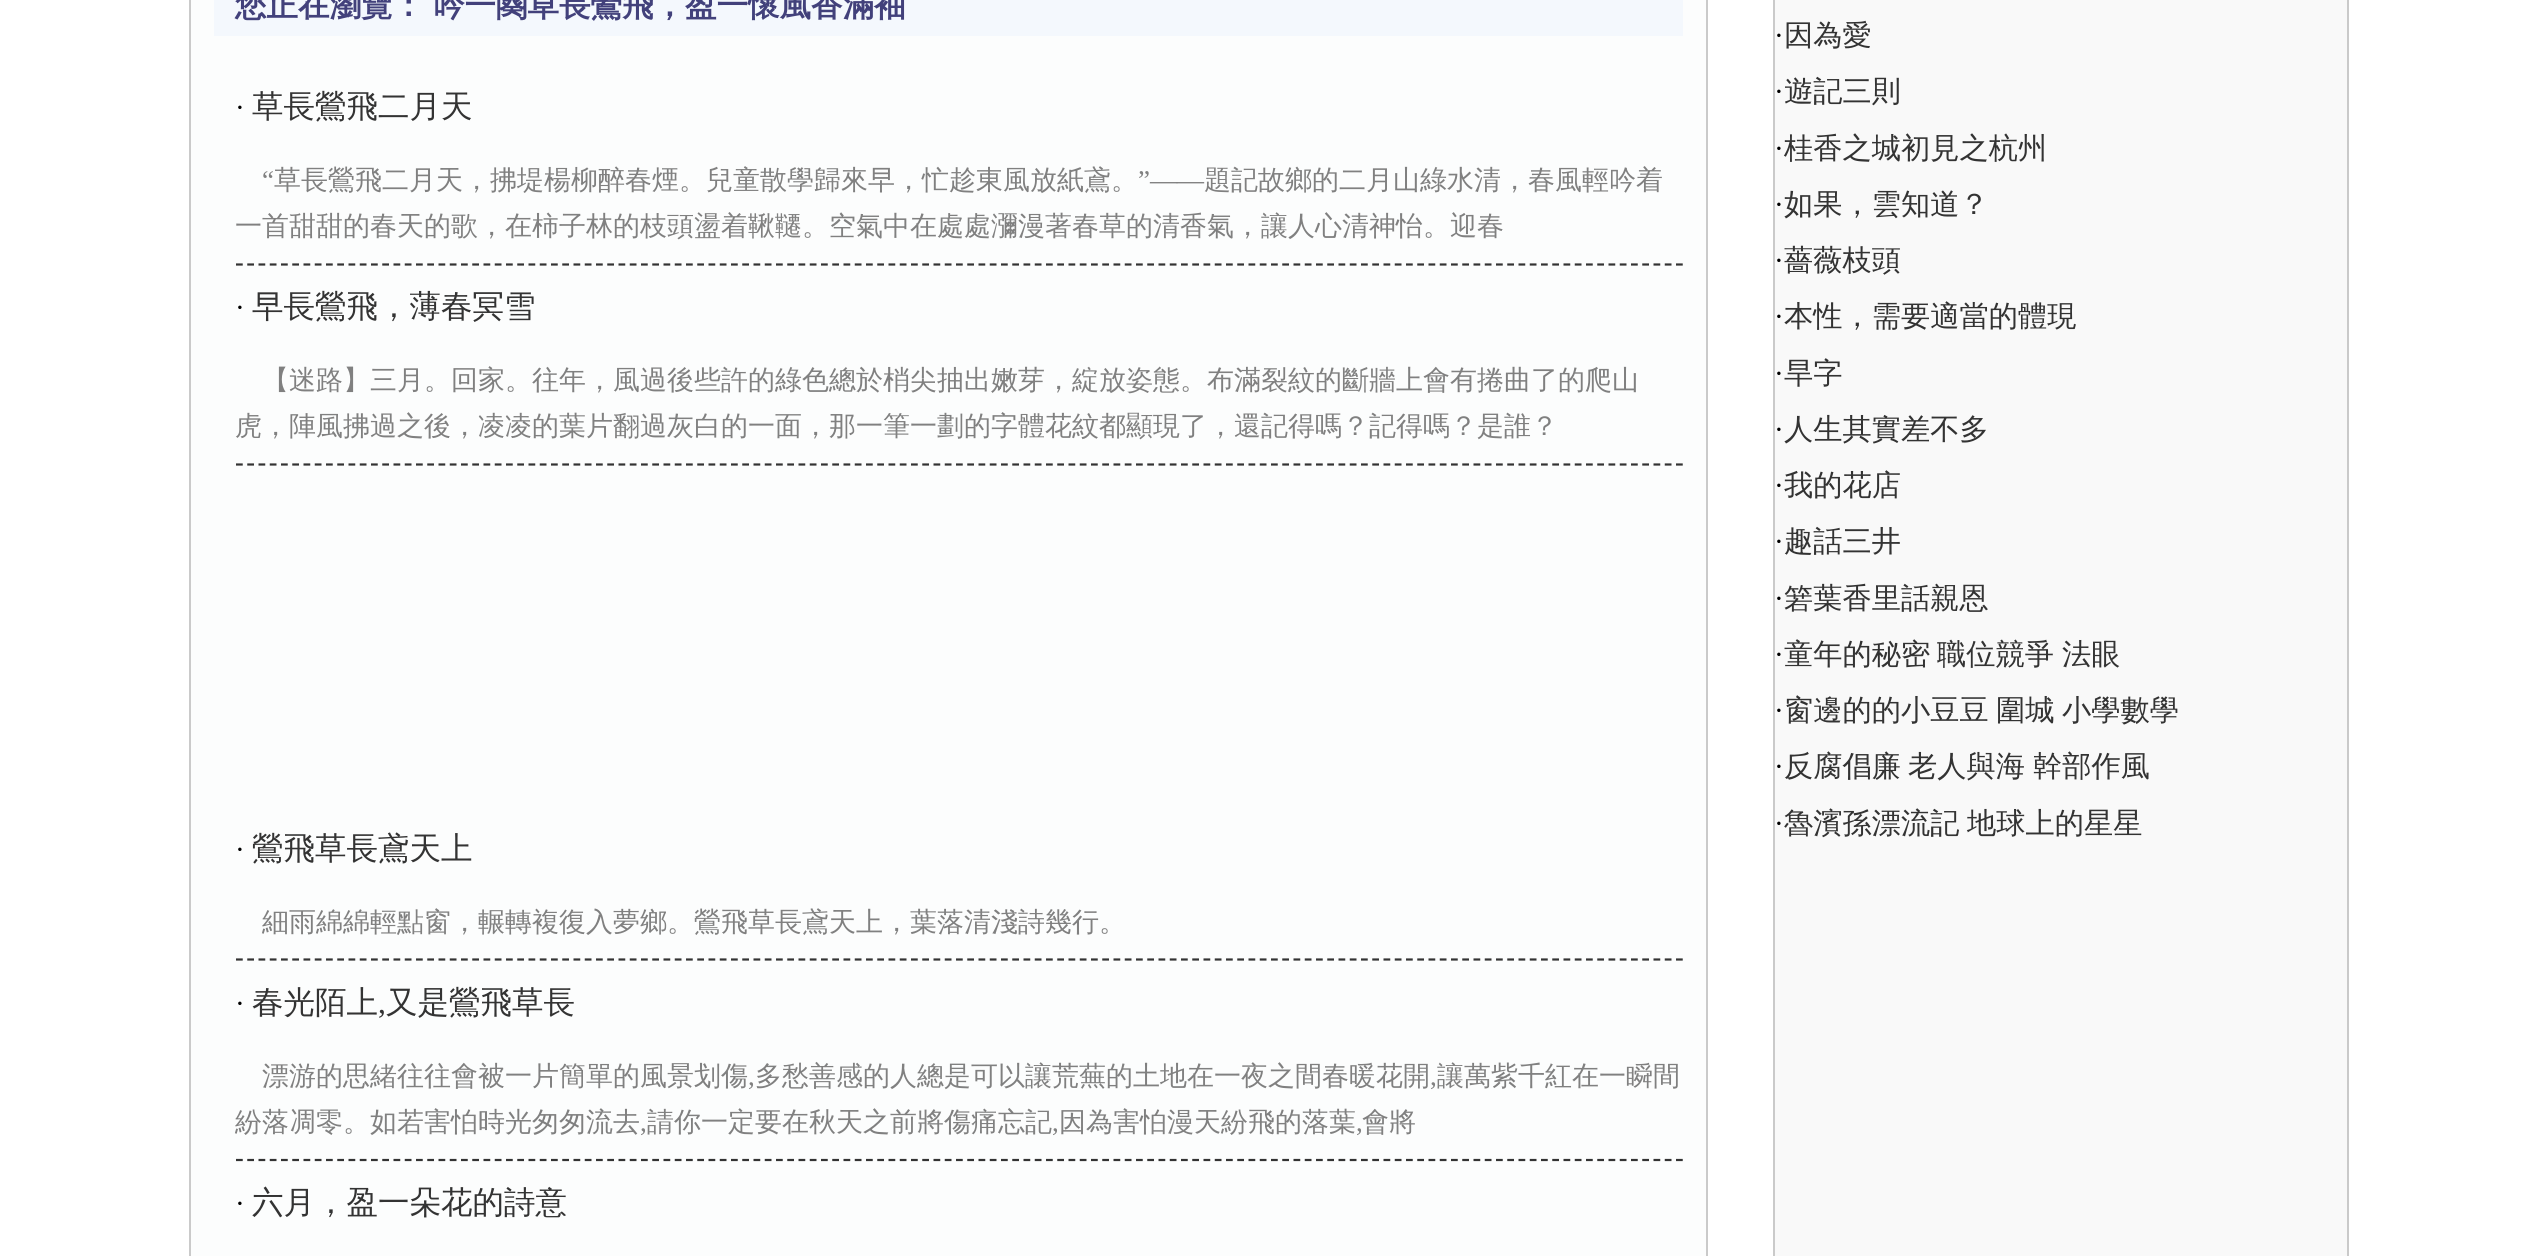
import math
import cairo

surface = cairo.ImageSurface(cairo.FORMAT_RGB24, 2534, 1256)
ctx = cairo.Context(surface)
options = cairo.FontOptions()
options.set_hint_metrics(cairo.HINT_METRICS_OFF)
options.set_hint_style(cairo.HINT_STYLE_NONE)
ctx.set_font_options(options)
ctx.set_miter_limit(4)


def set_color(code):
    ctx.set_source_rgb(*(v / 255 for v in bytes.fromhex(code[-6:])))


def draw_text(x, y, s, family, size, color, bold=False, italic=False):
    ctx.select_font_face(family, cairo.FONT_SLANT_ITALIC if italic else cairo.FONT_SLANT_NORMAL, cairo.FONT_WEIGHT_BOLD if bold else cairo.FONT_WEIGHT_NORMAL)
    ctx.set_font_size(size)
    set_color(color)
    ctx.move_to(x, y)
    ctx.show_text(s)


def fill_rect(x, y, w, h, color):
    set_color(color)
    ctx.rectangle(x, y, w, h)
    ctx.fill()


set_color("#ffffff")
ctx.paint()
ctx.rectangle(190, -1, 1517, 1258)
set_color("#cacaca")
ctx.stroke()
fill_rect(191, 0, 1515, 1256, "#fcfdfd")
fill_rect(214, 0, 1469, 36, "#f4f8fd")
draw_text(235, 16, "您正在瀏覽：", "WenQuanYi Zen Hei", 31.5, "#42417b", bold=True)
draw_text(433, 16, "吟一闋草長鶯飛，盈一懷風香滿袖", "WenQuanYi Zen Hei", 31.5, "#42417b", bold=True)
draw_text(235, 117, "·", "Liberation Serif", 29.25, "#000000")
draw_text(252, 117, "草長鶯飛二月天", "WenQuanYi Zen Hei Medium", 31.5, "#333333")
ctx.new_path()
ctx.move_to(236, 264.5)
ctx.line_to(1683, 264.5)
ctx.set_line_width(2.2)
ctx.set_dash([6.75, 4.5])
ctx.stroke()
draw_text(262, 189, "“", "Liberation Serif", 27, "#808080")
draw_text(274, 189, "草長鶯飛二月天，拂堤楊柳醉春煙。兒童散學歸來早，忙趁東風放紙鳶。", "WenQuanYi Zen Hei Medium", 27, "#808080")
draw_text(1138, 189, "”——", "Liberation Serif", 27, "#808080")
draw_text(1204, 189, "題記故鄉的二月山綠水清，春風輕吟着", "WenQuanYi Zen Hei Medium", 27, "#808080")
draw_text(235, 235, "一首甜甜的春天的歌，在柿子林的枝頭盪着鞦韆。空氣中在處處瀰漫著春草的清香氣，讓人心清神怡。迎春", "WenQuanYi Zen Hei Medium", 27, "#808080")
draw_text(235, 317, "·", "Liberation Serif", 29.25, "#000000")
draw_text(252, 317, "早長鶯飛，薄春冥雪", "WenQuanYi Zen Hei Medium", 31.5, "#333333")
ctx.new_path()
ctx.move_to(236, 464.5)
ctx.line_to(1683, 464.5)
ctx.stroke()
draw_text(262, 389, "【迷路】三月。回家。往年，風過後些許的綠色總於梢尖抽出嫩芽，綻放姿態。布滿裂紋的斷牆上會有捲曲了的爬山", "WenQuanYi Zen Hei Medium", 27, "#808080")
draw_text(235, 435, "虎，陣風拂過之後，凌凌的葉片翻過灰白的一面，那一筆一劃的字體花紋都顯現了，還記得嗎？記得嗎？是誰？", "WenQuanYi Zen Hei Medium", 27, "#808080")
draw_text(235, 859, "·", "Liberation Serif", 29.25, "#000000")
draw_text(252, 859, "鶯飛草長鳶天上", "WenQuanYi Zen Hei Medium", 31.5, "#333333")
ctx.new_path()
ctx.move_to(236, 959.5)
ctx.line_to(1683, 959.5)
ctx.stroke()
draw_text(262, 931, "細雨綿綿輕點窗，輾轉複復入夢鄉。鶯飛草長鳶天上，葉落清淺詩幾行。", "WenQuanYi Zen Hei Medium", 27, "#808080")
draw_text(235, 1013, "·", "Liberation Serif", 29.25, "#000000")
draw_text(252, 1013, "春光陌上", "WenQuanYi Zen Hei Medium", 31.5, "#333333")
draw_text(386, 1013, "又是鶯飛草長", "WenQuanYi Zen Hei Medium", 31.5, "#333333")
draw_text(378, 1013, ",", "Liberation Serif", 31.5, "#333333")
ctx.new_path()
ctx.move_to(236, 1160)
ctx.line_to(1683, 1160)
ctx.stroke()
draw_text(262, 1085, "漂游的思緒往往會被一片簡單的風景划傷", "WenQuanYi Zen Hei Medium", 27, "#808080")
draw_text(748, 1085, ",", "Liberation Serif", 27, "#808080")
draw_text(755, 1085, "多愁善感的人總是可以讓荒蕪的土地在一夜之間春暖花開", "WenQuanYi Zen Hei Medium", 27, "#808080")
draw_text(1430, 1085, ",", "Liberation Serif", 27, "#808080")
draw_text(1437, 1085, "讓萬紫千紅在一瞬間", "WenQuanYi Zen Hei Medium", 27, "#808080")
draw_text(235, 1131, "紛落凋零。如若害怕時光匆匆流去", "WenQuanYi Zen Hei Medium", 27, "#808080")
draw_text(640, 1131, ",", "Liberation Serif", 27, "#808080")
draw_text(647, 1131, "請你一定要在秋天之前將傷痛忘記", "WenQuanYi Zen Hei Medium", 27, "#808080")
draw_text(1052, 1131, ",", "Liberation Serif", 27, "#808080")
draw_text(1059, 1131, "因為害怕漫天紛飛的落葉", "WenQuanYi Zen Hei Medium", 27, "#808080")
draw_text(1356, 1131, ",", "Liberation Serif", 27, "#808080")
draw_text(1362, 1131, "會將", "WenQuanYi Zen Hei Medium", 27, "#808080")
draw_text(235, 1213, "·", "Liberation Serif", 29.25, "#000000")
draw_text(252, 1213, "六月，盈一朵花的詩意", "WenQuanYi Zen Hei Medium", 31.5, "#333333")
set_color("#f9f9f9")
ctx.rectangle(1774, -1, 574, 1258)
ctx.fill_preserve()
set_color("#cacaca")
ctx.set_line_width(2)
ctx.set_dash([])
ctx.stroke()
draw_text(1774, 45, "·", "Liberation Serif", 29.25, "#000000")
draw_text(1784, 45, "因為愛", "WenQuanYi Zen Hei Medium", 29.25, "#333333")
draw_text(1774, 101, "·", "Liberation Serif", 29.25, "#000000")
draw_text(1784, 101, "遊記三則", "WenQuanYi Zen Hei Medium", 29.25, "#333333")
draw_text(1774, 158, "·", "Liberation Serif", 29.25, "#000000")
draw_text(1784, 158, "桂香之城初見之杭州", "WenQuanYi Zen Hei Medium", 29.25, "#333333")
draw_text(1774, 214, "·", "Liberation Serif", 29.25, "#000000")
draw_text(1784, 214, "如果，雲知道？", "WenQuanYi Zen Hei Medium", 29.25, "#333333")
draw_text(1774, 270, "·", "Liberation Serif", 29.25, "#000000")
draw_text(1784, 270, "薔薇枝頭", "WenQuanYi Zen Hei Medium", 29.25, "#333333")
draw_text(1774, 326, "·", "Liberation Serif", 29.25, "#000000")
draw_text(1784, 326, "本性，需要適當的體現", "WenQuanYi Zen Hei Medium", 29.25, "#333333")
draw_text(1774, 383, "·", "Liberation Serif", 29.25, "#000000")
draw_text(1784, 383, "旱字", "WenQuanYi Zen Hei Medium", 29.25, "#333333")
draw_text(1774, 439, "·", "Liberation Serif", 29.25, "#000000")
draw_text(1784, 439, "人生其實差不多", "WenQuanYi Zen Hei Medium", 29.25, "#333333")
draw_text(1774, 495, "·", "Liberation Serif", 29.25, "#000000")
draw_text(1784, 495, "我的花店", "WenQuanYi Zen Hei Medium", 29.25, "#333333")
draw_text(1774, 551, "·", "Liberation Serif", 29.25, "#000000")
draw_text(1784, 551, "趣話三井", "WenQuanYi Zen Hei Medium", 29.25, "#333333")
draw_text(1774, 608, "·", "Liberation Serif", 29.25, "#000000")
draw_text(1784, 608, "箬葉香里話親恩", "WenQuanYi Zen Hei Medium", 29.25, "#333333")
draw_text(1774, 664, "·", "Liberation Serif", 29.25, "#000000")
draw_text(1784, 664, "童年的秘密", "WenQuanYi Zen Hei Medium", 29.25, "#333333")
draw_text(1937, 664, "職位競爭", "WenQuanYi Zen Hei Medium", 29.25, "#333333")
draw_text(2062, 664, "法眼", "WenQuanYi Zen Hei Medium", 29.25, "#333333")
draw_text(1774, 720, "·", "Liberation Serif", 29.25, "#000000")
draw_text(1784, 720, "窗邊的的小豆豆", "WenQuanYi Zen Hei Medium", 29.25, "#333333")
draw_text(1996, 720, "圍城", "WenQuanYi Zen Hei Medium", 29.25, "#333333")
draw_text(2062, 720, "小學數學", "WenQuanYi Zen Hei Medium", 29.25, "#333333")
draw_text(1774, 776, "·", "Liberation Serif", 29.25, "#000000")
draw_text(1784, 776, "反腐倡廉", "WenQuanYi Zen Hei Medium", 29.25, "#333333")
draw_text(1908, 776, "老人與海", "WenQuanYi Zen Hei Medium", 29.25, "#333333")
draw_text(2033, 776, "幹部作風", "WenQuanYi Zen Hei Medium", 29.25, "#333333")
draw_text(1774, 833, "·", "Liberation Serif", 29.25, "#000000")
draw_text(1784, 833, "魯濱孫漂流記", "WenQuanYi Zen Hei Medium", 29.25, "#333333")
draw_text(1967, 833, "地球上的星星", "WenQuanYi Zen Hei Medium", 29.25, "#333333")
surface.write_to_png("output.png")
